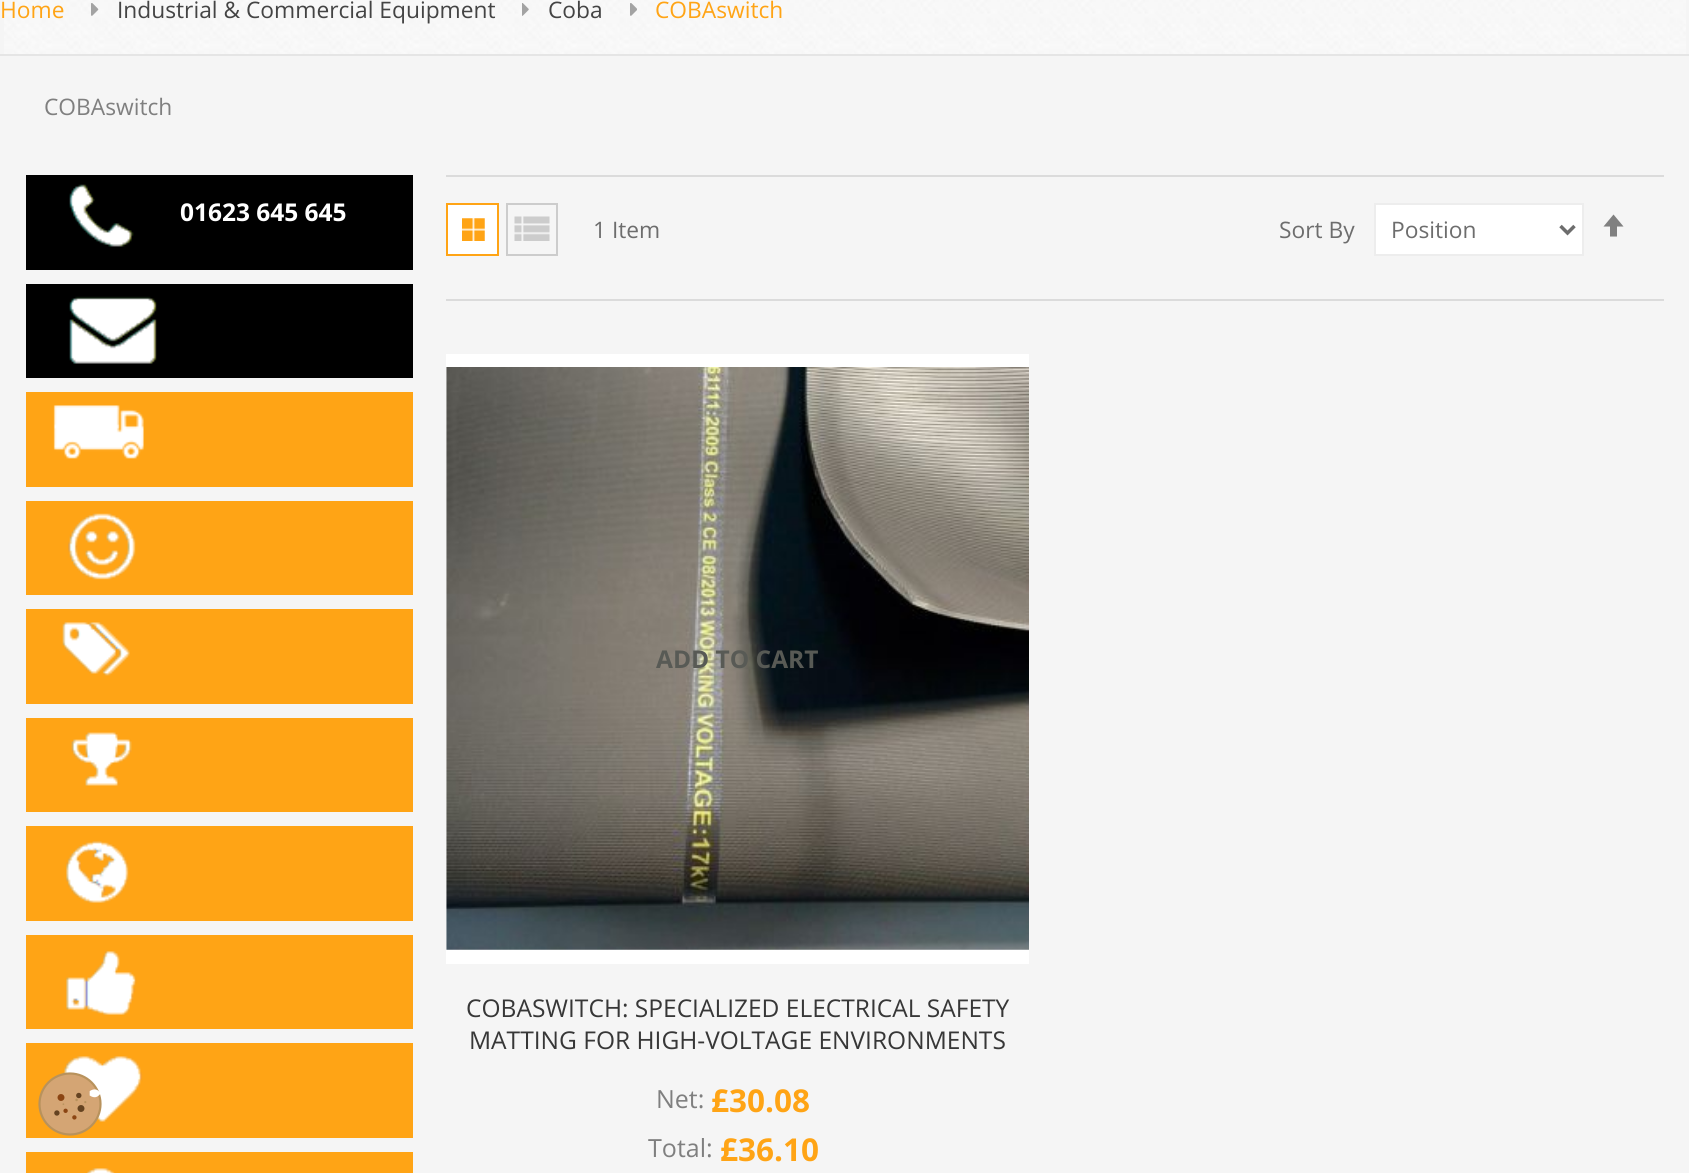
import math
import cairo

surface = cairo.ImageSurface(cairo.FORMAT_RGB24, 1689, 1173)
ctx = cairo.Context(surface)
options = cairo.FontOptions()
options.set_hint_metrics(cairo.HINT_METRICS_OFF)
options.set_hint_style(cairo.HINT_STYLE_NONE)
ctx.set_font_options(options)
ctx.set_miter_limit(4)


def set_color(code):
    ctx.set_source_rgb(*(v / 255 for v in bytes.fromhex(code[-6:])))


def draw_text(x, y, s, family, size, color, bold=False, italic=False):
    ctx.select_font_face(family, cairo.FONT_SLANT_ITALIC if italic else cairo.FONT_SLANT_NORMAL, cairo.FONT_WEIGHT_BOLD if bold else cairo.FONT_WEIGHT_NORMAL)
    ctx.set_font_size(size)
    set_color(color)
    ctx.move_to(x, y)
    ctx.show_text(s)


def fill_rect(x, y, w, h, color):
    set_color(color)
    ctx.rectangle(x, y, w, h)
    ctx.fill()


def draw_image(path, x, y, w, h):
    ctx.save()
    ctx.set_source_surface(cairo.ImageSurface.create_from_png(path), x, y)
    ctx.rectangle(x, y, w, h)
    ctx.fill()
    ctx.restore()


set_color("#f5f5f5")
ctx.paint()
draw_image("assets/img1.png", 4, 0, 1682, 54)
fill_rect(0, 54, 1689, 2, "#e5e5e5")
draw_text(0, 18, "Home", "Open Sans", 22.75, "#ffa415")
draw_image("assets/img2.png", 91, 3, 8, 13)
draw_text(117, 18, "Industrial & Commercial Equipment", "Open Sans", 22.75, "#444444")
draw_image("assets/img3.png", 522, 3, 7, 13)
draw_text(548, 18, "Coba", "Open Sans", 22.75, "#444444")
draw_image("assets/img4.png", 630, 3, 7, 13)
draw_text(655, 18, "COBAswitch", "Open Sans", 22.75, "#ffa415")
draw_text(44, 115, "COBAswitch", "Open Sans", 22.75, "#7f7f7f")
fill_rect(26, 175, 387, 95, "#000000")
draw_image("assets/img5.png", 69, 184, 65, 63)
draw_text(180, 221, "01623 645 645", "Open Sans", 24.5, "#ffffff", bold=True)
fill_rect(26, 284, 387, 94, "#000000")
draw_image("assets/img6.png", 69, 296, 88, 68)
fill_rect(26, 392, 387, 95, "#ffa415")
draw_image("assets/img7.png", 53, 405, 91, 54)
fill_rect(26, 501, 387, 94, "#ffa415")
draw_image("assets/img8.png", 68, 513, 68, 67)
fill_rect(26, 609, 387, 95, "#ffa415")
draw_image("assets/img9.png", 62, 622, 68, 54)
fill_rect(26, 718, 387, 94, "#ffa415")
draw_image("assets/img10.png", 71, 732, 61, 54)
fill_rect(26, 826, 387, 95, "#ffa415")
draw_image("assets/img11.png", 66, 841, 63, 62)
fill_rect(26, 935, 387, 94, "#ffa415")
draw_image("assets/img12.png", 66, 951, 71, 64)
fill_rect(26, 1043, 387, 95, "#ffa415")
draw_image("assets/img13.png", 62, 1056, 81, 66)
fill_rect(26, 1152, 387, 21, "#ffa415")
draw_image("assets/img14.png", 87, 1168, 28, 5)
fill_rect(446, 175, 1218, 2, "#dbdbdb")
fill_rect(446, 299, 1218, 2, "#dbdbdb")
fill_rect(448, 205, 49, 49, "#ffffff")
draw_image("assets/img15.png", 462, 218, 23, 23)
ctx.rectangle(447, 204, 51, 51)
set_color("#ffa415")
ctx.stroke()
draw_image("assets/img16.png", 514, 216, 36, 25)
ctx.rectangle(507, 204, 50, 51)
set_color("#cccccc")
ctx.stroke()
draw_text(593, 238, "1 Item", "Open Sans", 22.75, "#6d6d6d")
draw_text(1279, 238, "Sort By", "Open Sans", 22.75, "#6d6d6d")
set_color("#ffffff")
ctx.rectangle(1375, 204, 208, 51)
ctx.fill_preserve()
set_color("#ededed")
ctx.stroke()
ctx.new_path()
ctx.move_to(1560.5, 226)
ctx.line_to(1567.5, 233)
ctx.line_to(1574.5, 226)
set_color("#6d6d6d")
ctx.set_line_width(3.5)
ctx.stroke()
draw_text(1391, 238, "Position", "Open Sans", 22.75, "#6d6d6d")
set_color("#808080")
ctx.new_path()
ctx.move_to(1613.5, 214.5)
ctx.line_to(1603.5, 226.5)
ctx.line_to(1610, 226.5)
ctx.line_to(1610, 236.5)
ctx.line_to(1617, 236.5)
ctx.line_to(1617, 226.5)
ctx.line_to(1623.5, 226.5)
ctx.close_path()
ctx.fill()
fill_rect(446, 354, 583, 610, "#ffffff")
draw_image("assets/img17.png", 446, 367, 583, 583)
draw_text(656, 668, "ADD TO CART", "Open Sans", 24.5, "#585a55", bold=True)
draw_text(466, 1017, "COBASWITCH: SPECIALIZED ELECTRICAL SAFETY", "Open Sans", 24.5, "#373737")
draw_text(469, 1049, "MATTING FOR HIGH-VOLTAGE ENVIRONMENTS", "Open Sans", 24.5, "#373737")
draw_text(656, 1108, "Net:", "Open Sans", 25, "#7f7f7f")
draw_text(711, 1112, "£30.08", "Open Sans", 31.5, "#ffa415", bold=True)
draw_text(648, 1157, "Total:", "Open Sans", 25, "#7f7f7f")
draw_text(720, 1161, "£36.10", "Open Sans", 31.5, "#ffa415", bold=True)
draw_image("assets/img18.png", 38, 1072, 64, 64)
surface.write_to_png("output.png")
